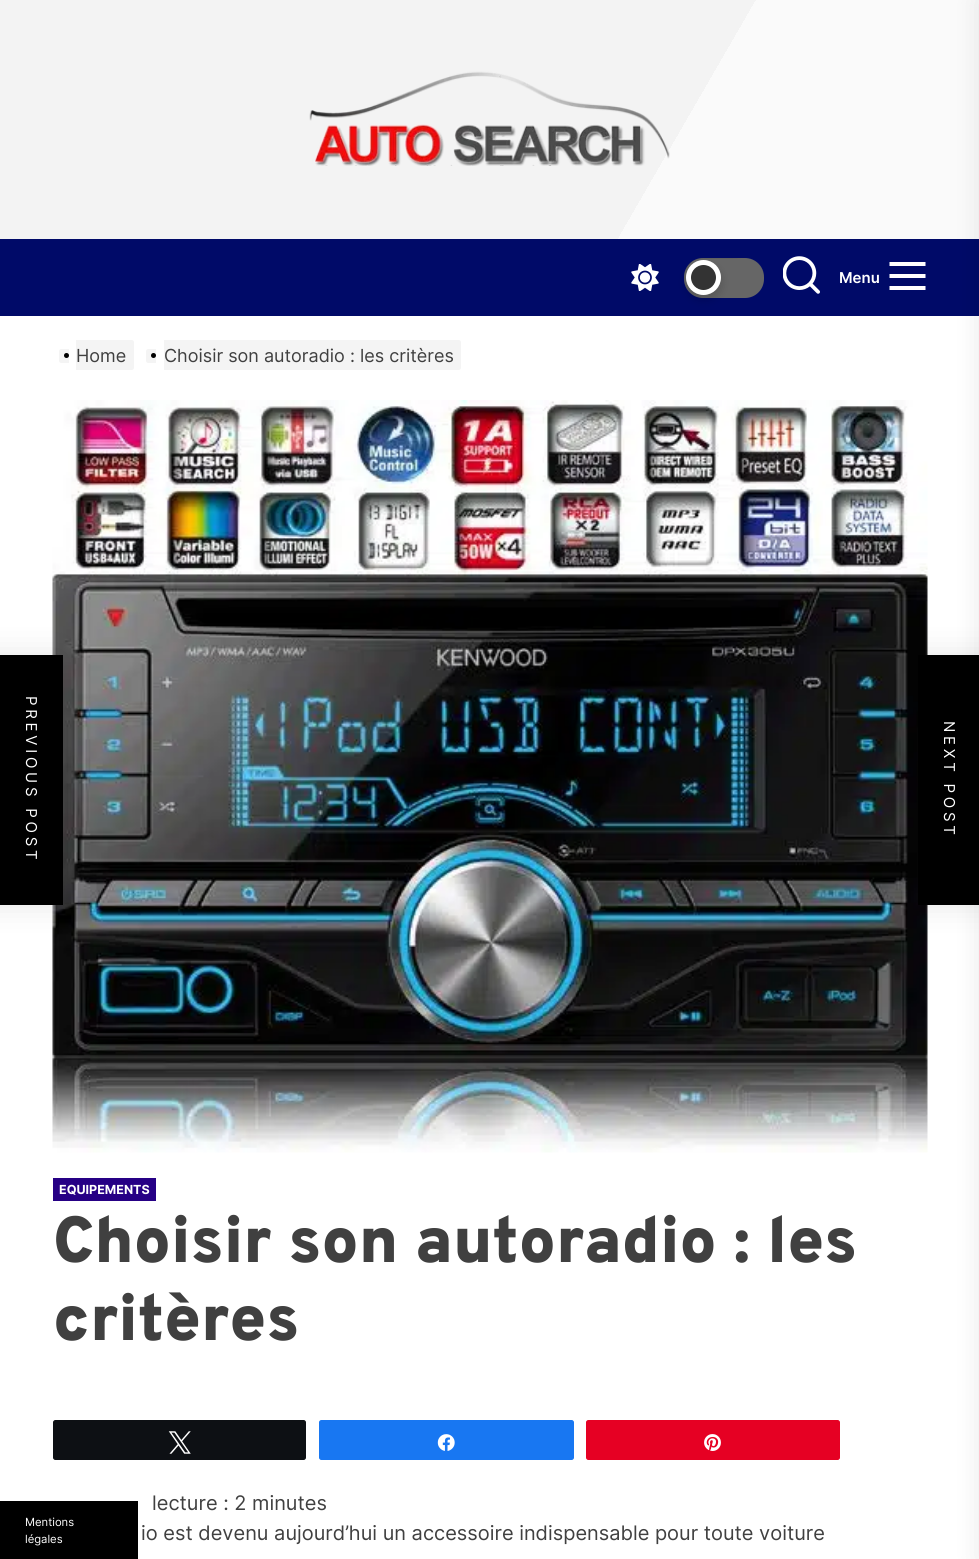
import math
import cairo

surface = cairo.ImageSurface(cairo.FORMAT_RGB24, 979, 1559)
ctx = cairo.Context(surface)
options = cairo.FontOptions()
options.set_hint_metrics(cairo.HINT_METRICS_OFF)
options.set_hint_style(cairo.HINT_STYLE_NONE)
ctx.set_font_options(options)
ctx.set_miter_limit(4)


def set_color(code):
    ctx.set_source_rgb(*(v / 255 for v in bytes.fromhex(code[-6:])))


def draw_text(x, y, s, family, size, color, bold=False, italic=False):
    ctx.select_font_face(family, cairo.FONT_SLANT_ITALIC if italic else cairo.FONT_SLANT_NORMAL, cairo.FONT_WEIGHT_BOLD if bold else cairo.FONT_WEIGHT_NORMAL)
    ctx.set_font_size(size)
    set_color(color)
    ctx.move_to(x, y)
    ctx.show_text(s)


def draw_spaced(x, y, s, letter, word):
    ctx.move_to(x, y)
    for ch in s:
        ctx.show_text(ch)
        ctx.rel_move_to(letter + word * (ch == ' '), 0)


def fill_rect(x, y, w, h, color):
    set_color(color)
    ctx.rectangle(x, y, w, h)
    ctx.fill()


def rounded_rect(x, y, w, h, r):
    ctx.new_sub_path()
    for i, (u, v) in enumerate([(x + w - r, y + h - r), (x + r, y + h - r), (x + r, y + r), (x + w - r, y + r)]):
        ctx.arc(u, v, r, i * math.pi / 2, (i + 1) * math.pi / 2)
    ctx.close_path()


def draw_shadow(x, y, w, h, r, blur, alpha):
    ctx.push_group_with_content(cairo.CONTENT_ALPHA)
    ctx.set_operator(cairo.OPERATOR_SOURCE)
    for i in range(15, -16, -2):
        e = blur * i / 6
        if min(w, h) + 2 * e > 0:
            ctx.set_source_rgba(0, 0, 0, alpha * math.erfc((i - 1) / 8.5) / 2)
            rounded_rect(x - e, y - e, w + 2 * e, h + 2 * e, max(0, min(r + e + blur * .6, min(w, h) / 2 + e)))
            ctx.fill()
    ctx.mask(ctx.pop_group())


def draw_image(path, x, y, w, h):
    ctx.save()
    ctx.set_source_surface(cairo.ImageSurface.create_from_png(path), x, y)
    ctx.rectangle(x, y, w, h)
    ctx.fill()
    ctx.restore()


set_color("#ffffff")
ctx.paint()
gradient = cairo.LinearGradient(926, 410, 54, -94)
gradient.add_color_stop_rgba(0.35, 0.98, 0.98, 0.98, 1)
gradient.add_color_stop_rgba(0.35, 0.953, 0.953, 0.953, 1)
ctx.set_source(gradient)
ctx.rectangle(0, 0, 979, 239)
ctx.fill()
draw_image("assets/img1.png", 309, 71, 361, 95)
fill_rect(0, 239, 979, 77, "#000a68")
draw_image("assets/img2.png", 631, 264, 28, 27)
set_color("#666666")
rounded_rect(684, 258, 80, 40, 19)
ctx.fill()
ctx.set_source_rgba(0, 0, 0, 0.05)
ctx.set_fill_rule(cairo.FILL_RULE_EVEN_ODD)
ctx.new_path()
ctx.move_to(702, 259)
ctx.line_to(732, 259)
ctx.curve_to(738, 259, 744, 257, 750, 259)
ctx.curve_to(759, 262, 764, 270, 764, 279)
ctx.line_to(764, 277)
ctx.curve_to(764, 267, 755, 258, 745, 258)
ctx.line_to(703, 258)
ctx.curve_to(693, 258, 684, 266, 684, 277)
ctx.curve_to(685, 268, 691, 259, 702, 259)
ctx.close_path()
ctx.move_to(764, 279)
ctx.line_to(764, 281)
ctx.close_path()
ctx.fill()
set_color("#000000")
draw_shadow(686, 265, 35, 35, 17.5, 5, 0.16)
set_color("#333333")
ctx.arc(703.5, 277.5, 15, 0, 2 * math.pi)
ctx.fill_preserve()
set_color("#ffffff")
ctx.set_line_width(5)
ctx.stroke()
draw_image("assets/img3.png", 783, 256, 37, 38)
draw_text(839, 283, "Menu", "Inter SemiBold", 15, "#ffffff")
ctx.set_fill_rule(cairo.FILL_RULE_WINDING)
ctx.new_path()
ctx.move_to(889.5, 262)
ctx.line_to(889.5, 266)
ctx.line_to(925.5, 266)
ctx.line_to(925.5, 262)
ctx.close_path()
ctx.move_to(889.5, 278)
ctx.line_to(925.5, 278)
ctx.line_to(925.5, 274)
ctx.line_to(889.5, 274)
ctx.close_path()
ctx.move_to(889.5, 290)
ctx.line_to(925.5, 290)
ctx.line_to(925.5, 286)
ctx.line_to(889.5, 286)
ctx.close_path()
ctx.fill()
draw_image("assets/img4.png", 52, 400, 876, 753)
set_color("#000000")
draw_shadow(918, 655, 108, 250, 0, 15.5, 0.1)
fill_rect(918, 655, 61, 250, "#000000")
set_color("#000000")
draw_shadow(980, 0, 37, 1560, 0, 12.5, 0.1)
set_color("#f4f4f4")
ctx.new_path()
ctx.move_to(61.5, 349)
ctx.line_to(69, 349)
ctx.line_to(69, 363)
ctx.line_to(61.5, 363)
ctx.curve_to(60, 363, 59, 362, 59, 360.5)
ctx.line_to(59, 351.5)
ctx.curve_to(59, 350, 60, 349, 61.5, 349)
ctx.close_path()
ctx.fill()
ctx.new_path()
ctx.move_to(76, 340)
ctx.line_to(131.5, 340)
ctx.curve_to(133, 340, 134, 341, 134, 342.5)
ctx.line_to(134, 367.5)
ctx.curve_to(134, 369, 133, 370, 131.5, 370)
ctx.line_to(76, 370)
ctx.close_path()
ctx.fill()
set_color("#000000")
ctx.arc(66.5, 355.5, 2.5, 0, 2 * math.pi)
ctx.fill()
draw_text(76, 362, "Home", "Inter", 18, "#404040")
set_color("#f4f4f4")
ctx.new_path()
ctx.move_to(148.5, 349)
ctx.line_to(156, 349)
ctx.line_to(156, 363)
ctx.line_to(148.5, 363)
ctx.curve_to(147, 363, 146, 362, 146, 360.5)
ctx.line_to(146, 351.5)
ctx.curve_to(146, 350, 147, 349, 148.5, 349)
ctx.close_path()
ctx.fill()
ctx.new_path()
ctx.move_to(164, 340)
ctx.line_to(458.5, 340)
ctx.curve_to(460, 340, 461, 341, 461, 342.5)
ctx.line_to(461, 367.5)
ctx.curve_to(461, 369, 460, 370, 458.5, 370)
ctx.line_to(164, 370)
ctx.close_path()
ctx.fill()
set_color("#000000")
ctx.arc(153.5, 355.5, 2.5, 0, 2 * math.pi)
ctx.fill()
draw_text(164, 362, "Choisir son autoradio : les critères", "Inter", 18, "#404040")
set_color("#000000")
draw_shadow(-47, 655, 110, 250, 0, 15.5, 0.1)
fill_rect(0, 655, 63, 250, "#000000")
ctx.set_font_size(15)
set_color("#ffffff")
ctx.save()
ctx.translate(26, 696)
ctx.rotate(90 * math.pi / 180)
draw_spaced(0, 0, "PREVIOUS POST", 3.75, 0)
ctx.restore()
ctx.save()
ctx.translate(944, 721)
ctx.rotate(90 * math.pi / 180)
draw_spaced(0, 0, "NEXT POST", 3.75, 0)
ctx.restore()
fill_rect(53, 1178, 103, 23, "#260085")
draw_text(59, 1194, "EQUIPEMENTS", "Inter", 12.5, "#ffffff", bold=True)
draw_text(53, 1262, "Choisir son autoradio : les", "Overpass Black", 65, "#404040")
draw_text(53, 1340, "critères", "Overpass Black", 65, "#404040")
set_color("#0d1014")
rounded_rect(53.5, 1420.5, 252, 39, 2)
ctx.fill_preserve()
ctx.set_line_width(1)
ctx.stroke()
draw_image("assets/img5.png", 168, 1431, 23, 23)
set_color("#1877f2")
rounded_rect(319.5, 1420.5, 254, 39, 2)
ctx.fill_preserve()
ctx.stroke()
draw_image("assets/img6.png", 437, 1434, 18, 17)
set_color("#e60023")
rounded_rect(586.5, 1420.5, 253, 39, 2)
ctx.fill_preserve()
ctx.stroke()
draw_image("assets/img7.png", 704, 1434, 17, 17)
draw_text(152, 1510, "lecture : 2 minutes", "Inter", 20, "#404040")
draw_text(141, 1540, "io est devenu aujourd’hui un accessoire indispensable pour toute voiture", "Inter", 20, "#404040")
fill_rect(0, 1501, 138, 58, "#000000")
draw_text(25, 1526, "Mentions", "Inter", 11.25, "#ffffff")
draw_text(25, 1543, "légales", "Inter", 11.25, "#ffffff")
surface.write_to_png("output.png")
